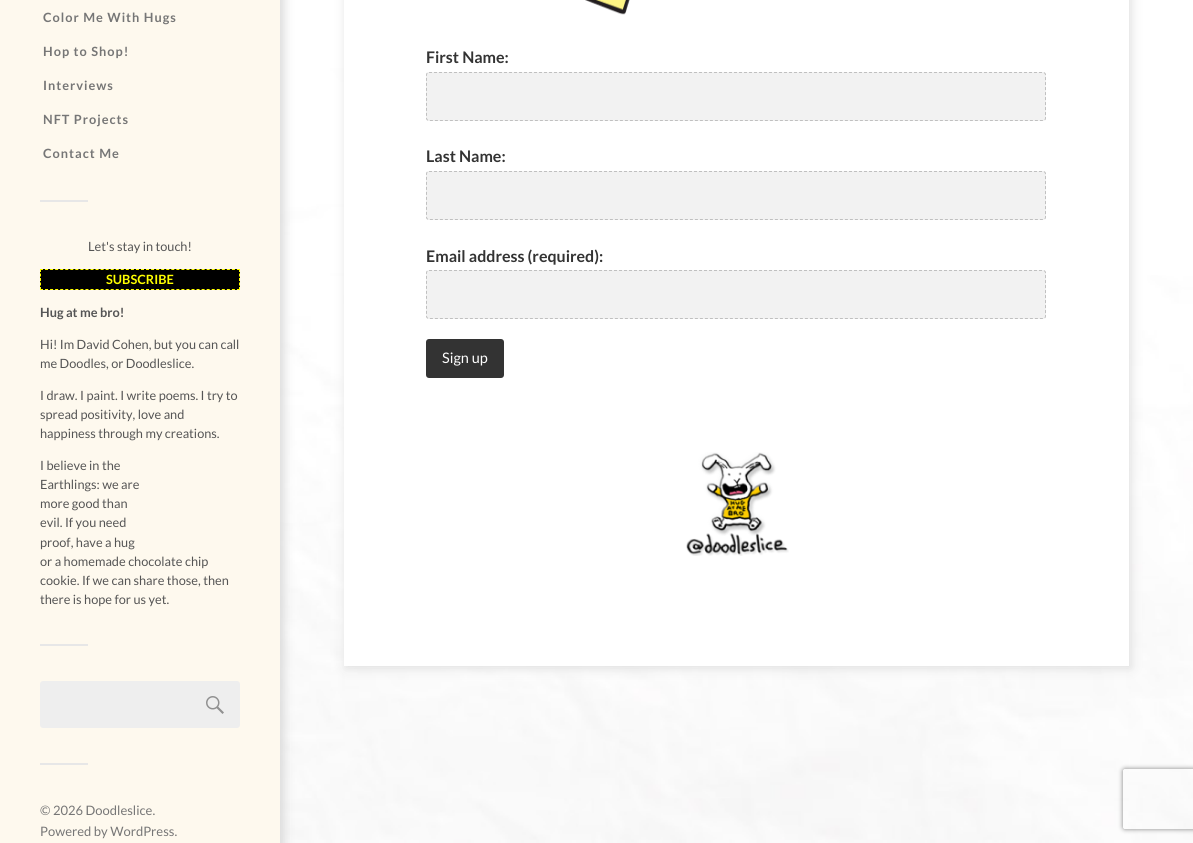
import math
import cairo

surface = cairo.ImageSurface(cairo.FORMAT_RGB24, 1193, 843)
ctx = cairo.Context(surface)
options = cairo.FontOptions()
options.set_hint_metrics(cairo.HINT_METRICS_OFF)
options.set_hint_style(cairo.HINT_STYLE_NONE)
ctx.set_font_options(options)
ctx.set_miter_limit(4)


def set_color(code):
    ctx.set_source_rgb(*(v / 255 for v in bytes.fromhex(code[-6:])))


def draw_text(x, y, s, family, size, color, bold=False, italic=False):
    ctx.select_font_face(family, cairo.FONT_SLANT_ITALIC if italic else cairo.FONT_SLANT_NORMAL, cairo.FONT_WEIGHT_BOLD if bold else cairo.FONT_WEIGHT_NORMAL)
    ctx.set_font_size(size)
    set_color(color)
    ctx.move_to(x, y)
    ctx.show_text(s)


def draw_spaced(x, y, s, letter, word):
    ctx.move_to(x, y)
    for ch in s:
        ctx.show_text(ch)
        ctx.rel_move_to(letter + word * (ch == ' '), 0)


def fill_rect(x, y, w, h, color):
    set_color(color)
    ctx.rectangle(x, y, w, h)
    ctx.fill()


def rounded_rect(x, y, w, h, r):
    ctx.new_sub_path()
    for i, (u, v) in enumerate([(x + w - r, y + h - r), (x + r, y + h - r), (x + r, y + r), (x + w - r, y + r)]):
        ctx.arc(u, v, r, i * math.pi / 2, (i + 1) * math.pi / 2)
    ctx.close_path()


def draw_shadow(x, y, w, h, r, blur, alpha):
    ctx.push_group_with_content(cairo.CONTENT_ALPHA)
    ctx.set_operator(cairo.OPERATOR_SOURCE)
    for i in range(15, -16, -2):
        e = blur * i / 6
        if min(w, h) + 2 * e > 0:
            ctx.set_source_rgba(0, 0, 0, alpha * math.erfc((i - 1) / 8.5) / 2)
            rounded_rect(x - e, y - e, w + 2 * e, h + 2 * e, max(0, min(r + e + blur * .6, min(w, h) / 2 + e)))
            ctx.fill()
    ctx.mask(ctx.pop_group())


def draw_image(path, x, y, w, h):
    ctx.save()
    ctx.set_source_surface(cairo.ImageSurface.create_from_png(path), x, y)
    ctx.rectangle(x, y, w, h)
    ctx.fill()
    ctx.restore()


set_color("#ffffff")
ctx.paint()
draw_image("assets/img1.png", 280, 10, 913, 833)
set_color("#d9d9d9")
draw_shadow(4, -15, 280, 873, 0, 5, 1)
fill_rect(0, 0, 280, 843, "#fef9ee")
ctx.select_font_face("Lato", cairo.FONT_SLANT_NORMAL, cairo.FONT_WEIGHT_BOLD)
ctx.set_font_size(12.75)
set_color("#767676")
draw_spaced(43, 22, "Color Me With Hugs", 1, 0)
draw_spaced(43, 56, "Hop to Shop!", 1, 0)
draw_spaced(43, 90, "Interviews", 1, 0)
draw_spaced(43, 124, "NFT Projects", 1, 0)
draw_spaced(43, 158, "Contact Me", 1, 0)
fill_rect(40, 200, 48, 2, "#e7e7e7")
draw_text(88, 251, "Let's stay in touch!", "Lato", 12.75, "#555555")
fill_rect(40, 269, 200, 21, "#000000")
ctx.new_path()
ctx.move_to(40, 269.5)
ctx.line_to(240, 269.5)
set_color("#ffff00")
ctx.set_line_width(1)
ctx.set_dash([3, 2.05])
ctx.stroke()
ctx.new_path()
ctx.move_to(239.5, 269)
ctx.line_to(239.5, 290)
ctx.set_dash([3, 1.5])
ctx.stroke()
ctx.new_path()
ctx.move_to(40, 289.5)
ctx.line_to(240, 289.5)
ctx.set_dash([3, 2.05])
ctx.stroke()
ctx.new_path()
ctx.move_to(40.5, 269)
ctx.line_to(40.5, 290)
ctx.set_dash([3, 1.5])
ctx.stroke()
draw_text(106, 284, "SUBSCRIBE", "Lato", 12.75, "#ffff00", bold=True)
draw_text(40, 317, "Hug at me bro!", "Lato", 12.75, "#555555", bold=True)
draw_text(40, 349, "Hi! Im David Cohen, but you can call", "Lato", 12.75, "#555555")
draw_text(40, 368, "me Doodles, or Doodleslice.", "Lato", 12.75, "#555555")
draw_text(40, 400, "I draw. I paint. I write poems. I try to", "Lato", 12.75, "#555555")
draw_text(40, 419, "spread positivity, love and", "Lato", 12.75, "#555555")
draw_text(40, 438, "happiness through my creations.", "Lato", 12.75, "#555555")
draw_text(40, 470, "I believe in the", "Lato", 12.75, "#555555")
draw_text(40, 489, "Earthlings: we are", "Lato", 12.75, "#555555")
draw_text(40, 508, "more good than", "Lato", 12.75, "#555555")
draw_text(40, 527, "evil. If you need", "Lato", 12.75, "#555555")
draw_text(40, 547, "proof, have a hug", "Lato", 12.75, "#555555")
draw_text(40, 566, "or a homemade chocolate chip", "Lato", 12.75, "#555555")
draw_text(40, 585, "cookie. If we can share those, then", "Lato", 12.75, "#555555")
draw_text(40, 604, "there is hope for us yet.", "Lato", 12.75, "#555555")
fill_rect(40, 644, 48, 2, "#e7e7e7")
set_color("#eeeeee")
rounded_rect(40, 681, 200, 47, 3)
ctx.fill()
draw_image("assets/img2.png", 206, 696, 18, 18)
fill_rect(40, 763, 48, 2, "#e7e7e7")
draw_text(40, 815, "© 2026 Doodleslice.", "Lato", 13, "#767676")
draw_text(40, 836, "Powered by WordPress.", "Lato", 13, "#767676")
set_color("#dddddd")
draw_shadow(346, -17, 785, 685, 0, 5.5, 1)
fill_rect(344, 0, 785, 666, "#ffffff")
draw_image("assets/img3.png", 585, 0, 45, 15)
draw_text(426, 63, "First Name:", "Lato", 16, "#333333", bold=True)
set_color("#f2f2f2")
rounded_rect(426, 72, 620, 49, 3)
ctx.fill()
ctx.new_path()
ctx.move_to(429, 72.5)
ctx.line_to(1043, 72.5)
ctx.curve_to(1044.5, 72.5, 1045.5, 73.5, 1045.5, 75)
ctx.line_to(1045.5, 118)
ctx.curve_to(1045.5, 119.5, 1044.5, 120.5, 1043, 120.5)
ctx.line_to(429, 120.5)
ctx.curve_to(427.5, 120.5, 426.5, 119.5, 426.5, 118)
ctx.line_to(426.5, 75)
ctx.curve_to(426.5, 73.5, 427.5, 72.5, 429, 72.5)
ctx.close_path()
set_color("#c0c0c0")
ctx.set_dash([3, 2])
ctx.stroke()
draw_text(426, 162, "Last Name:", "Lato", 16, "#333333", bold=True)
set_color("#f2f2f2")
rounded_rect(426, 171, 620, 49, 3)
ctx.fill()
ctx.new_path()
ctx.move_to(429, 171.5)
ctx.line_to(1043, 171.5)
ctx.curve_to(1044.5, 171.5, 1045.5, 172.5, 1045.5, 174)
ctx.line_to(1045.5, 217)
ctx.curve_to(1045.5, 218.5, 1044.5, 219.5, 1043, 219.5)
ctx.line_to(429, 219.5)
ctx.curve_to(427.5, 219.5, 426.5, 218.5, 426.5, 217)
ctx.line_to(426.5, 174)
ctx.curve_to(426.5, 172.5, 427.5, 171.5, 429, 171.5)
ctx.close_path()
set_color("#c0c0c0")
ctx.stroke()
draw_text(426, 262, "Email address (required):", "Lato", 16, "#333333", bold=True)
set_color("#f2f2f2")
rounded_rect(426, 270, 620, 49, 3)
ctx.fill()
ctx.new_path()
ctx.move_to(429, 270.5)
ctx.line_to(1043, 270.5)
ctx.curve_to(1044.5, 270.5, 1045.5, 271.5, 1045.5, 273)
ctx.line_to(1045.5, 316)
ctx.curve_to(1045.5, 317.5, 1044.5, 318.5, 1043, 318.5)
ctx.line_to(429, 318.5)
ctx.curve_to(427.5, 318.5, 426.5, 317.5, 426.5, 316)
ctx.line_to(426.5, 273)
ctx.curve_to(426.5, 271.5, 427.5, 270.5, 429, 270.5)
ctx.close_path()
set_color("#c0c0c0")
ctx.stroke()
set_color("#333333")
rounded_rect(426, 339, 78, 39, 3)
ctx.fill()
draw_text(442, 363, "Sign up", "Lato", 14.5, "#ffffff")
draw_image("assets/img4.png", 686, 452, 103, 104)
ctx.save()
ctx.set_fill_rule(cairo.FILL_RULE_EVEN_ODD)
ctx.new_path()
ctx.move_to(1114, 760)
ctx.line_to(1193, 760)
ctx.line_to(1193, 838)
ctx.line_to(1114, 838)
ctx.close_path()
ctx.move_to(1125, 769)
ctx.line_to(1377, 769)
ctx.curve_to(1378, 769, 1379, 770, 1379, 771)
ctx.line_to(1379, 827)
ctx.curve_to(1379, 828, 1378, 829, 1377, 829)
ctx.line_to(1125, 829)
ctx.curve_to(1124, 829, 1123, 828, 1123, 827)
ctx.line_to(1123, 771)
ctx.curve_to(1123, 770, 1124, 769, 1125, 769)
ctx.close_path()
ctx.clip()
set_color("#808080")
draw_shadow(1123, 769, 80, 60, 2, 2.5, 1)
ctx.restore()
surface.write_to_png("output.png")
